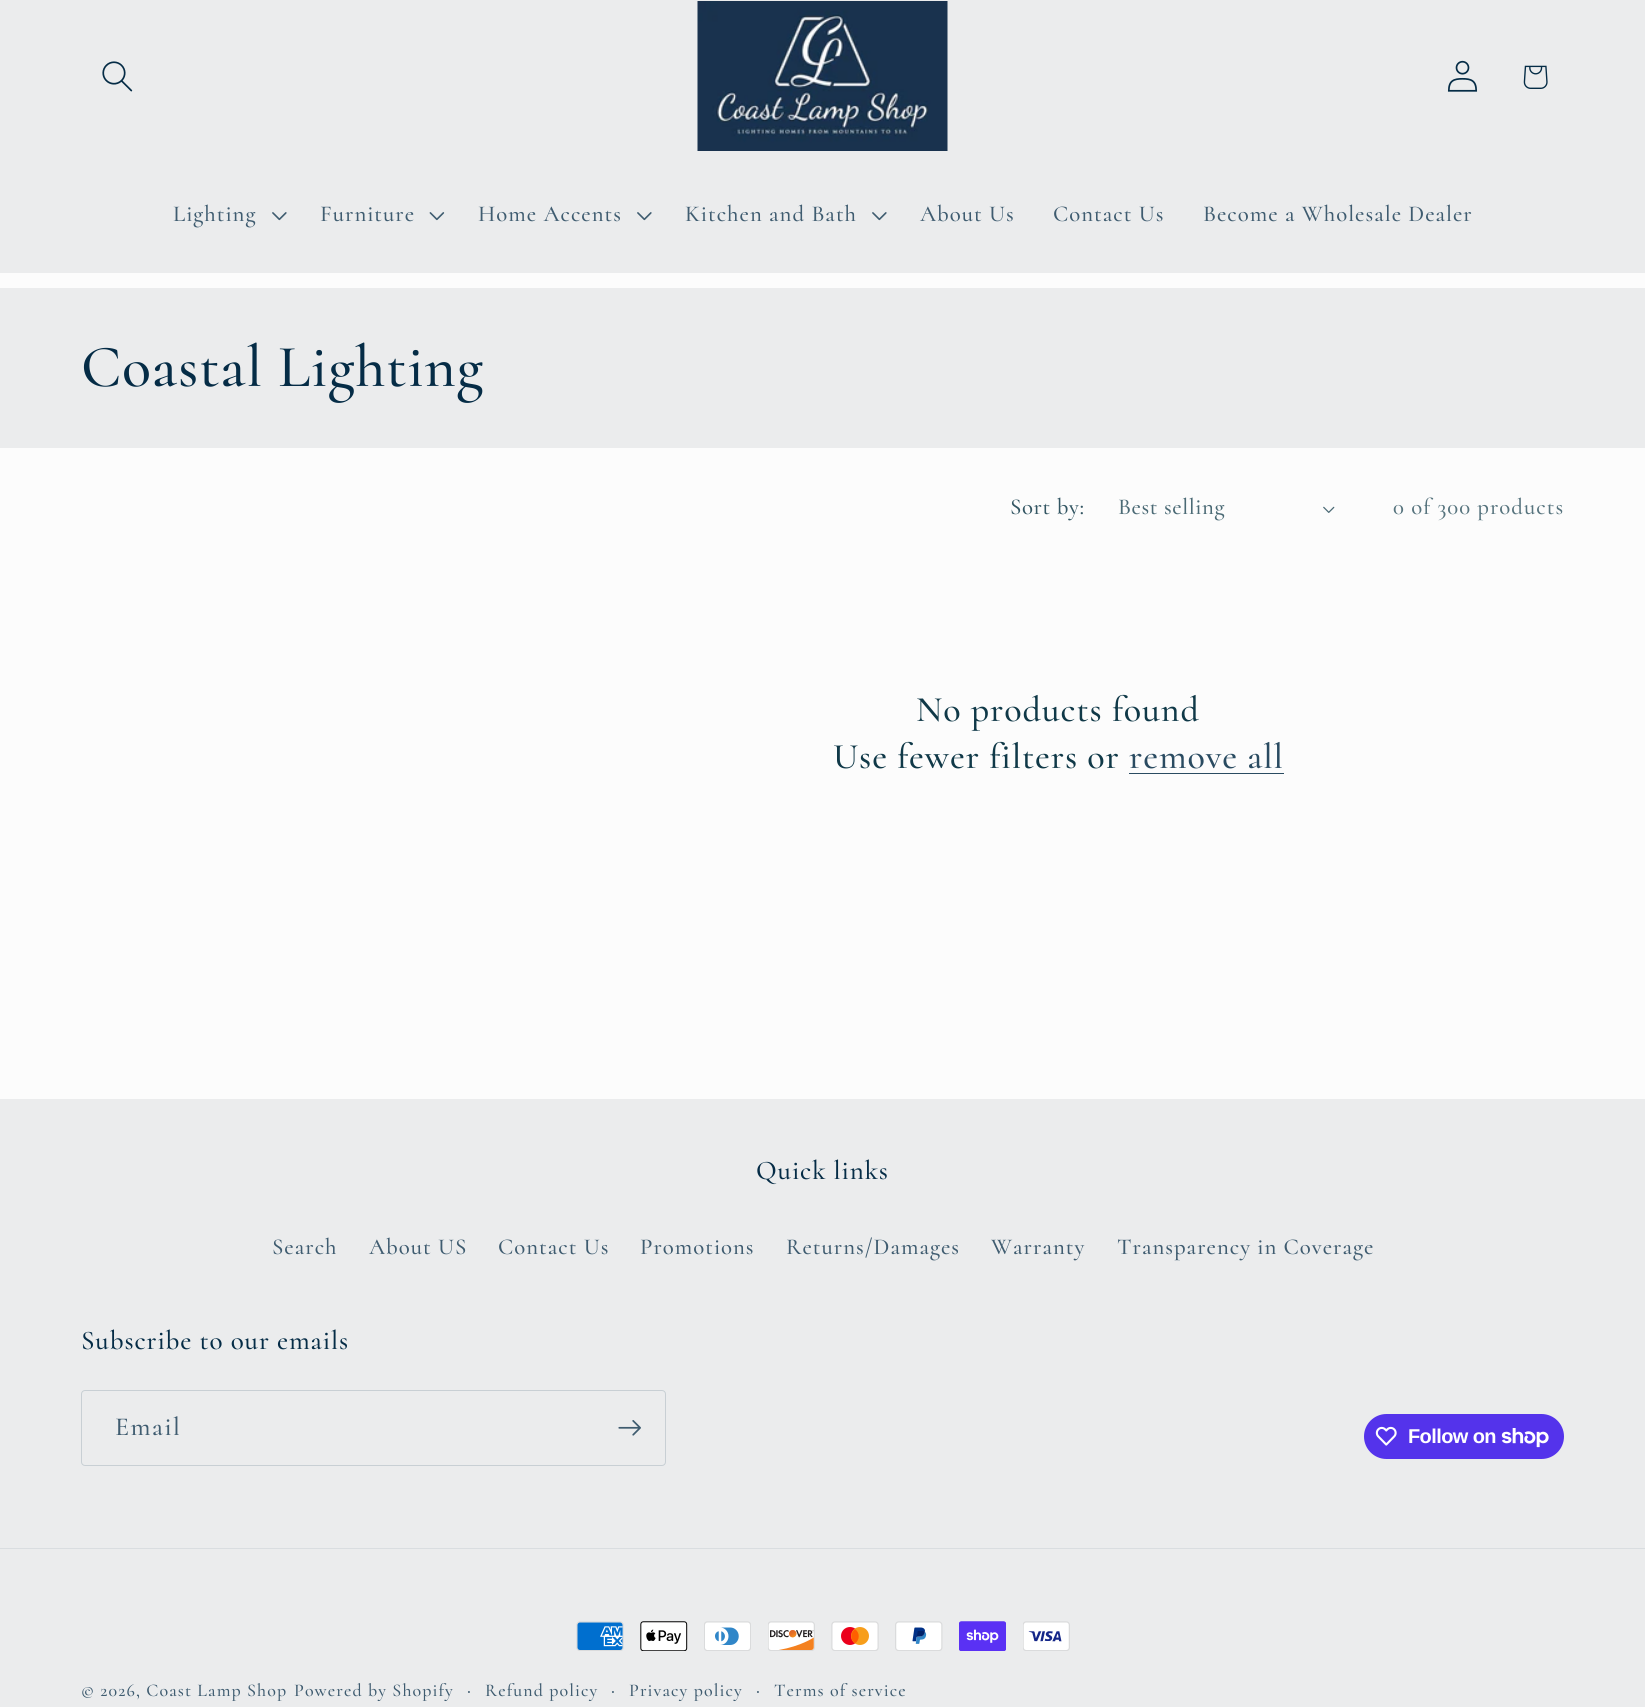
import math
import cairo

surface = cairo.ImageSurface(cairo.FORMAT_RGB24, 1645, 1707)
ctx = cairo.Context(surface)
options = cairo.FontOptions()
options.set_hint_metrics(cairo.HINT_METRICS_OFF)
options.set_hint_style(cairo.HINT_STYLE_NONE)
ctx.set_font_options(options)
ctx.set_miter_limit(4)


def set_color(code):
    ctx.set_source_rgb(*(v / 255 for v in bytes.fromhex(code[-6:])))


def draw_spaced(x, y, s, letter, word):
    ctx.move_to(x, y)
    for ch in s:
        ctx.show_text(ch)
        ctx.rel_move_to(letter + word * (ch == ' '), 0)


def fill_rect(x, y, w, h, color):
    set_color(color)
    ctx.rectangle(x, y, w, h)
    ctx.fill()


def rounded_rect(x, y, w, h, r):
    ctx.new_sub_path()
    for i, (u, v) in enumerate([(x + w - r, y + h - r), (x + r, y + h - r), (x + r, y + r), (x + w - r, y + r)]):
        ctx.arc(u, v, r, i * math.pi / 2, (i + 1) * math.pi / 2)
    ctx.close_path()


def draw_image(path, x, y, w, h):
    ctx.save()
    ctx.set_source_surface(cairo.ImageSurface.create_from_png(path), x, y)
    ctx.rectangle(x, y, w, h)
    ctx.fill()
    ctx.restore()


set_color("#fcfcfc")
ctx.paint()
fill_rect(0, 0, 1645, 273, "#ebeced")
draw_image("assets/img1.png", 102, 61, 31, 31)
draw_image("assets/img2.png", 697, 1, 251, 150)
draw_image("assets/img3.png", 1447, 60, 31, 32)
draw_image("assets/img4.png", 1523, 65, 25, 24)
ctx.select_font_face("Cormorant Medium")
ctx.set_font_size(22.75)
set_color("#3f5c70")
draw_spaced(173, 221, "Lighting", 1, 0)
draw_image("assets/img5.png", 272, 212, 15, 9)
draw_spaced(320, 221, "Furniture", 1, 0)
draw_image("assets/img6.png", 429, 212, 16, 9)
draw_spaced(478, 221, "Home Accents", 1, 0)
draw_image("assets/img5.png", 637, 212, 15, 9)
draw_spaced(685, 221, "Kitchen and Bath", 1, 0)
draw_image("assets/img5.png", 872, 212, 15, 9)
draw_spaced(920, 221, "About Us", 1, 0)
draw_spaced(1053, 221, "Contact Us", 1, 0)
draw_spaced(1203, 221, "Become a Wholesale Dealer", 1, 0)
fill_rect(0, 288, 1645, 160, "#ebeced")
ctx.set_font_size(60)
set_color("#052c46")
draw_spaced(81, 386, "Coastal Lighting", 0.9, 0)
ctx.set_font_size(22.75)
set_color("#335663")
draw_spaced(1010, 514, "Sort by:", 0.6, 0)
set_color("#4b6a75")
draw_spaced(1118, 514, "Best selling", 0.6, 0)
draw_image("assets/img7.png", 1323, 506, 12, 7)
set_color("#57747e")
draw_spaced(1393, 514, "0 of 300 products", 1, 0)
ctx.set_font_size(36)
set_color("#103948")
draw_spaced(916, 721, "No products found", 0.9, 0)
draw_spaced(833, 768, "Use fewer filters or", 0.9, 0)
set_color("#2a4b61")
draw_spaced(1129, 768, "remove all", 0.9, 0)
fill_rect(1129, 773, 155, 1, "#2a4b61")
fill_rect(0, 1099, 1645, 608, "#ebeced")
ctx.set_font_size(27)
set_color("#052c46")
draw_spaced(756, 1179, "Quick links", 0.9, 0)
ctx.set_font_size(22.75)
set_color("#3f5c70")
draw_spaced(272, 1254, "Search", 1, 0)
draw_spaced(369, 1254, "About US", 1, 0)
draw_spaced(498, 1254, "Contact Us", 1, 0)
draw_spaced(640, 1254, "Promotions", 1, 0)
draw_spaced(786, 1254, "Returns/Damages", 1, 0)
draw_spaced(991, 1254, "Warranty", 1, 0)
draw_spaced(1117, 1254, "Transparency in Coverage", 1, 0)
ctx.set_font_size(27)
set_color("#052c46")
draw_spaced(81, 1349, "Subscribe to our emails", 0.9, 0)
rounded_rect(81.5, 1390.5, 584, 75, 3.5)
set_color("#c8cfd4")
ctx.set_line_width(1)
ctx.stroke()
ctx.set_font_size(26)
set_color("#3f5c70")
draw_spaced(115, 1435, "Email", 1.5, 0)
draw_image("assets/img8.png", 618, 1420, 23, 16)
set_color("#5433eb")
rounded_rect(1364, 1414, 200, 45, 22.5)
ctx.fill()
draw_image("assets/img9.png", 1375, 1426, 22, 20)
ctx.select_font_face("Liberation Sans", cairo.FONT_SLANT_NORMAL, cairo.FONT_WEIGHT_BOLD)
ctx.set_font_size(20)
set_color("#ffffff")
draw_spaced(1408, 1443, "Follow on", -0.6, 0)
draw_image("assets/img10.png", 1501, 1428, 48, 20)
fill_rect(0, 1548, 1645, 1, "#d9dde0")
draw_image("assets/img11.png", 576, 1621, 48, 30)
draw_image("assets/img12.png", 640, 1621, 48, 30)
draw_image("assets/img13.png", 704, 1621, 47, 30)
draw_image("assets/img14.png", 768, 1621, 47, 30)
draw_image("assets/img15.png", 831, 1621, 48, 30)
draw_image("assets/img16.png", 895, 1621, 48, 30)
draw_image("assets/img17.png", 959, 1621, 47, 30)
draw_image("assets/img18.png", 1023, 1621, 47, 30)
ctx.select_font_face("Cormorant Medium")
ctx.set_font_size(17.9)
set_color("#3f5c70")
draw_spaced(81, 1696, "© 2026, Coast Lamp Shop", 1.1, 0)
draw_spaced(294, 1696, "Powered by Shopify", 1.1, 0)
ctx.set_font_size(20)
draw_spaced(467, 1696, "·", 1.1, 0)
ctx.set_font_size(17.9)
draw_spaced(485, 1696, "Refund policy", 1.1, 0)
ctx.set_font_size(20)
draw_spaced(611, 1696, "·", 1.1, 0)
ctx.set_font_size(17.9)
draw_spaced(629, 1696, "Privacy policy", 1.1, 0)
ctx.set_font_size(20)
draw_spaced(756, 1696, "·", 1.1, 0)
ctx.set_font_size(17.9)
draw_spaced(774, 1696, "Terms of service", 1.1, 0)
surface.write_to_png("output.png")
